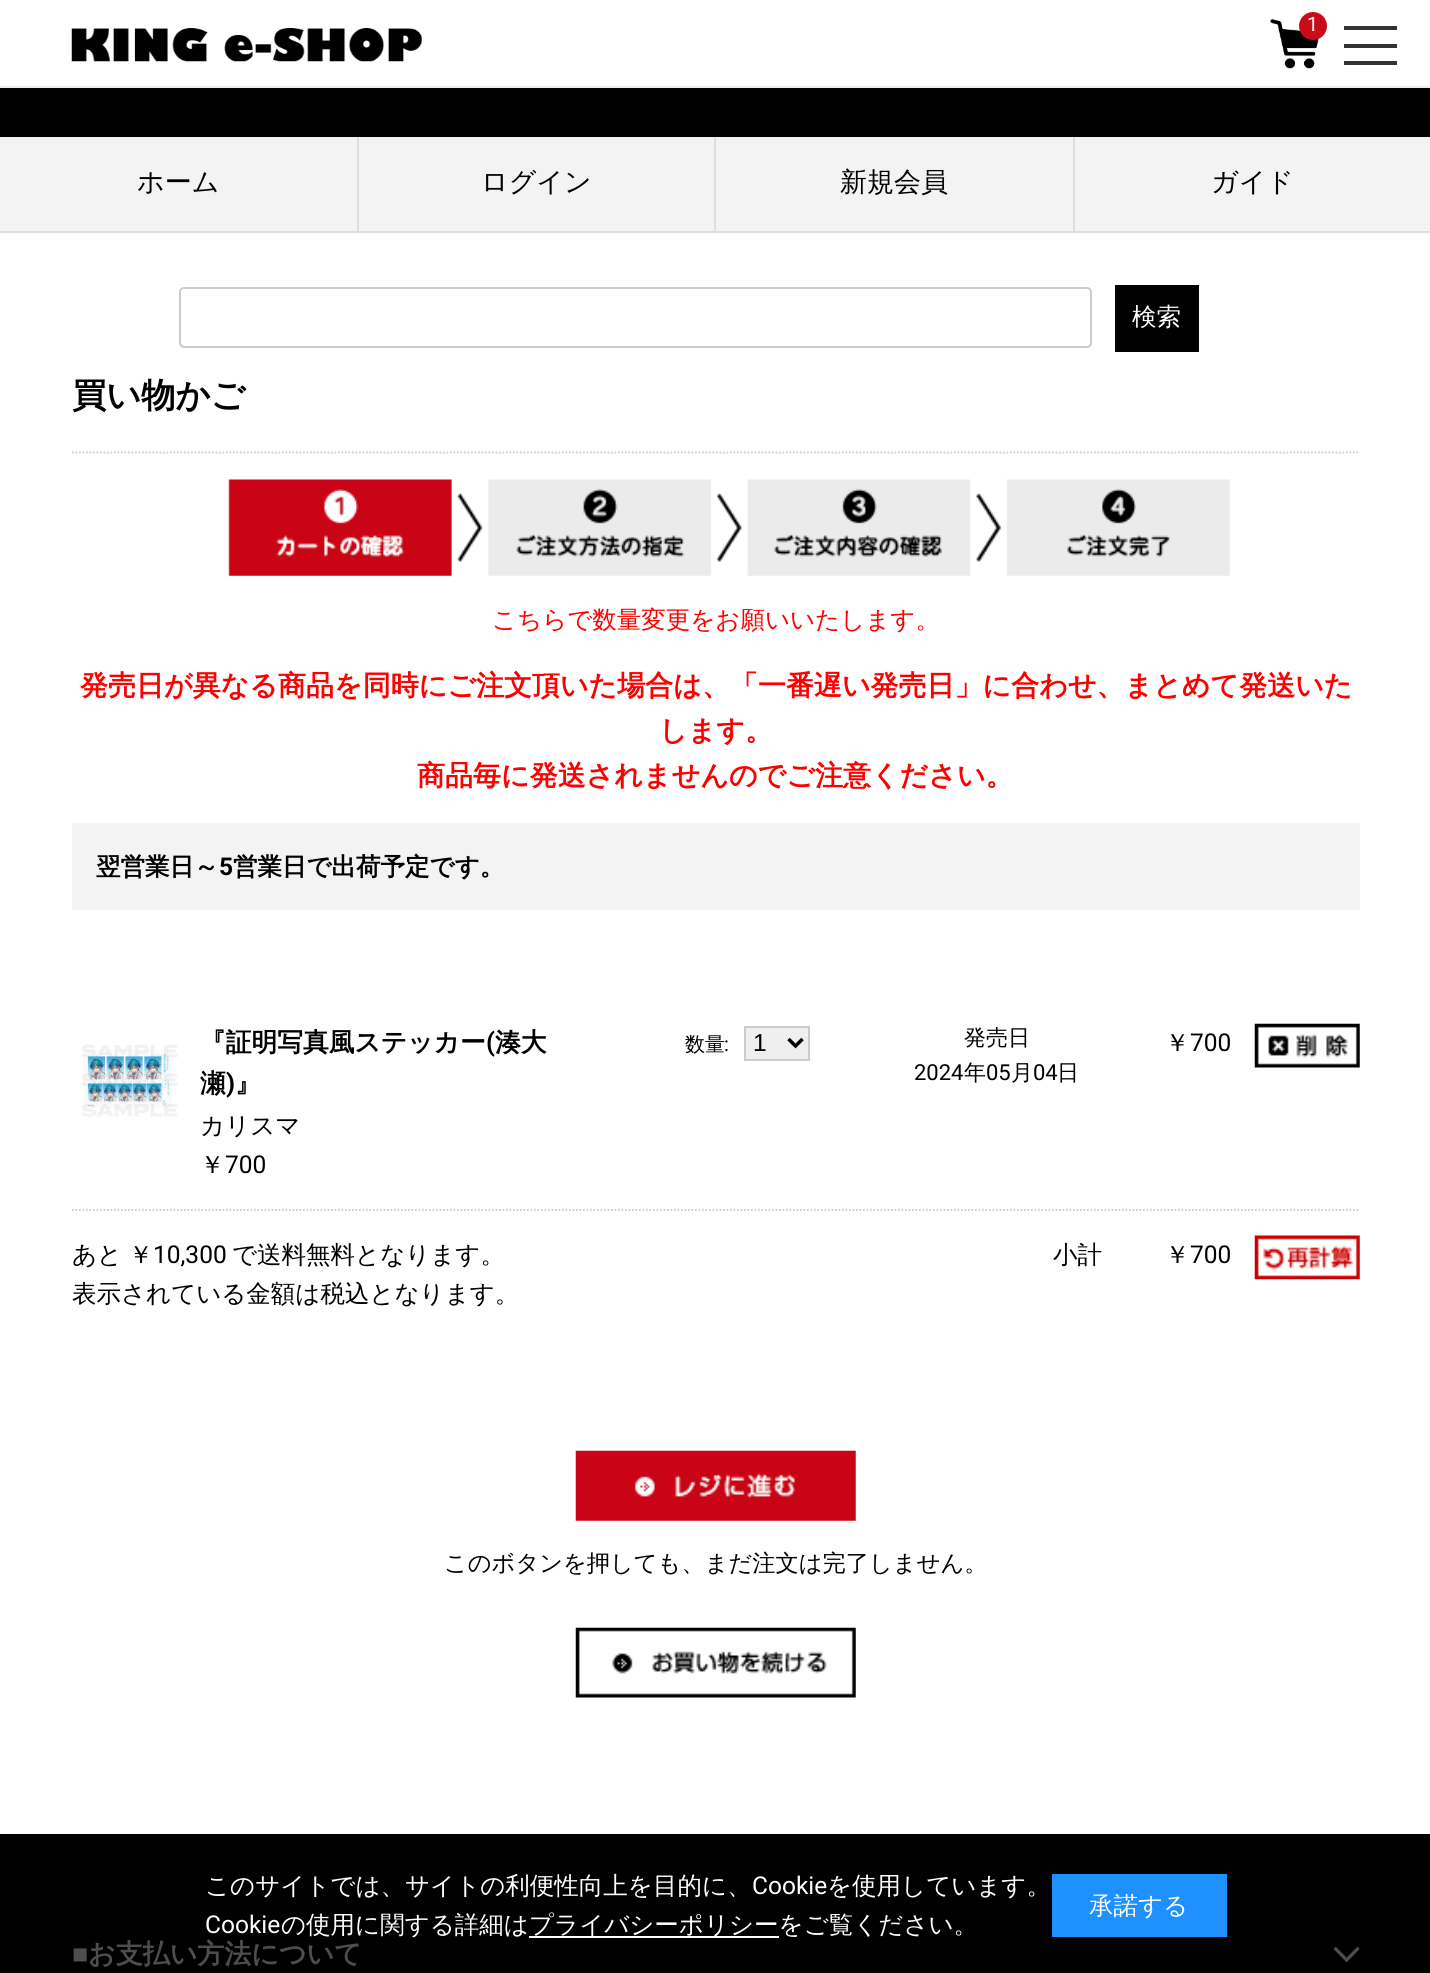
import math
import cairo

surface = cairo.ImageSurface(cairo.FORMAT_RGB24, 1430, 1973)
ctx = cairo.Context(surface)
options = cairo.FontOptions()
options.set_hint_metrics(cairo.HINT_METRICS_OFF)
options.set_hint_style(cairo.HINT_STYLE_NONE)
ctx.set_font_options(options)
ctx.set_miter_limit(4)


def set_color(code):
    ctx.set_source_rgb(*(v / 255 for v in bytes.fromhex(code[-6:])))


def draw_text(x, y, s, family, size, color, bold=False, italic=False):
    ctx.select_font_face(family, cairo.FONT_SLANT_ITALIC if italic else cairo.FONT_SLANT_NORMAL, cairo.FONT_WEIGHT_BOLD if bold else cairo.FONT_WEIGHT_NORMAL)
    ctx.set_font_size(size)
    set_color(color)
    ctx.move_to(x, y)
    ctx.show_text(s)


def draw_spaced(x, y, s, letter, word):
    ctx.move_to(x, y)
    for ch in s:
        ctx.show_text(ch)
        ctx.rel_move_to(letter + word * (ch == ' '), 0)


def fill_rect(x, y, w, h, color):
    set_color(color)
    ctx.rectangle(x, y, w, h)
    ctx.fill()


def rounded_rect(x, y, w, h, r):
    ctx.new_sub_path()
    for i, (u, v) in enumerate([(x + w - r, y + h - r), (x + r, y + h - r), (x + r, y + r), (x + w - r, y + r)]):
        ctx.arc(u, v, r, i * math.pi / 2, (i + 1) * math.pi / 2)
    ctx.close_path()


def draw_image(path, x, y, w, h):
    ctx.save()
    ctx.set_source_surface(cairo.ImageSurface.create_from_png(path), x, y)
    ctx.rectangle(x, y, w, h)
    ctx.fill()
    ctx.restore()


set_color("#ffffff")
ctx.paint()
draw_image("assets/img1.png", 1270, 19, 49, 50)
set_color("#ca0b1a")
ctx.arc(1313, 26, 14, 0, 2 * math.pi)
ctx.fill()
draw_text(1307, 31, "1", "Roboto", 20, "#ffffff")
fill_rect(1344, 26, 53, 4, "#333333")
fill_rect(1344, 44, 53, 4, "#333333")
fill_rect(1344, 61, 53, 4, "#333333")
fill_rect(0, 86, 1430, 2, "#eeeeee")
draw_image("assets/img2.png", 71, 28, 351, 34)
fill_rect(0, 88, 1430, 49, "#000000")
fill_rect(357, 137, 2, 96, "#dddddd")
fill_rect(0, 231, 359, 2, "#dddddd")
fill_rect(0, 137, 357, 94, "#f3f3f3")
draw_text(137, 191, "ホーム", "WenQuanYi Zen Hei Medium", 27, "#000000")
fill_rect(714, 137, 2, 96, "#dddddd")
fill_rect(359, 231, 357, 2, "#dddddd")
fill_rect(359, 137, 355, 94, "#f3f3f3")
draw_text(481, 191, "ログイン", "WenQuanYi Zen Hei Medium", 27, "#000000")
fill_rect(1073, 137, 2, 96, "#dddddd")
fill_rect(716, 231, 714, 2, "#dddddd")
fill_rect(716, 137, 357, 94, "#f3f3f3")
draw_text(840, 191, "新規会員", "WenQuanYi Zen Hei Medium", 27, "#000000")
fill_rect(1075, 137, 355, 94, "#f3f3f3")
draw_text(1211, 191, "ガイド", "WenQuanYi Zen Hei Medium", 27, "#000000")
rounded_rect(180, 288, 911, 59, 4)
set_color("#cccccc")
ctx.stroke()
fill_rect(1115, 285, 84, 67, "#000000")
draw_text(1132, 325, "検索", "WenQuanYi Zen Hei Medium", 24.5, "#ffffff")
ctx.new_path()
ctx.move_to(72, 452.5)
ctx.line_to(1360, 452.5)
set_color("#cccccc")
ctx.set_line_width(1.8)
ctx.set_dash([1.75, 1.75])
ctx.stroke()
draw_text(72, 407, "買い物かご", "WenQuanYi Zen Hei", 34.25, "#000000", bold=True)
draw_image("assets/img3.png", 228, 479, 1002, 97)
draw_text(492, 628, "こちらで数量変更をお願いいたします。", "WenQuanYi Zen Hei Medium", 24.5, "#ff0000")
draw_text(80, 695, "発売日が異なる商品を同時にご注文頂いた場合は、「一番遅い発売日」に合わせ、まとめて発送いた", "WenQuanYi Zen Hei", 28, "#ff0000", bold=True)
draw_text(659, 740, "します。", "WenQuanYi Zen Hei", 28, "#ff0000", bold=True)
draw_text(417, 785, "商品毎に発送されませんのでご注意ください。", "WenQuanYi Zen Hei", 28, "#ff0000", bold=True)
fill_rect(72, 823, 1288, 87, "#f3f3f3")
draw_text(96, 875, "翌営業日～", "WenQuanYi Zen Hei", 24.5, "#000000", bold=True)
draw_text(219, 875, "5", "Roboto", 24.5, "#000000", bold=True)
draw_text(233, 875, "営業日で出荷予定です。", "WenQuanYi Zen Hei", 24.5, "#000000", bold=True)
draw_image("assets/img4.png", 81, 1044, 97, 73)
draw_text(200, 1051, "『証明写真風ステッカー", "WenQuanYi Zen Hei", 25.75, "#000000", bold=True)
draw_text(486, 1051, "(", "Roboto", 25.75, "#000000", bold=True)
draw_text(495, 1051, "湊大", "WenQuanYi Zen Hei", 25.75, "#000000", bold=True)
draw_text(200, 1092, "瀬", "WenQuanYi Zen Hei", 25.75, "#000000", bold=True)
draw_text(226, 1092, ")", "Roboto", 25.75, "#000000", bold=True)
draw_text(235, 1092, "』", "WenQuanYi Zen Hei", 25.75, "#000000", bold=True)
draw_text(200, 1134, "カリスマ", "WenQuanYi Zen Hei Medium", 24.5, "#000000")
draw_text(200, 1173, "￥", "WenQuanYi Zen Hei Medium", 24.5, "#000000")
draw_text(225, 1173, "700", "Roboto", 24.5, "#000000")
draw_text(685, 1051, "数量", "WenQuanYi Zen Hei Medium", 20, "#000000")
draw_text(724, 1051, ":", "Roboto", 20, "#000000")
set_color("#efefef")
ctx.rectangle(745, 1027, 64, 33)
ctx.fill_preserve()
set_color("#cccccc")
ctx.set_line_width(2)
ctx.set_dash([])
ctx.stroke()
ctx.new_path()
ctx.move_to(788.5, 1039)
ctx.line_to(795.5, 1046)
ctx.line_to(802.5, 1039)
set_color("#000000")
ctx.set_line_width(3.5)
ctx.stroke()
draw_text(753, 1051, "1", "Liberation Sans", 24.5, "#000000")
draw_text(964, 1045, "発売日", "WenQuanYi Zen Hei Medium", 22, "#000000")
draw_text(914, 1080, "2024", "Roboto", 22, "#000000")
draw_text(964, 1080, "年", "WenQuanYi Zen Hei Medium", 22, "#000000")
draw_text(986, 1080, "05", "Roboto", 22, "#000000")
draw_text(1011, 1080, "月", "WenQuanYi Zen Hei Medium", 22, "#000000")
draw_text(1033, 1080, "04", "Roboto", 22, "#000000")
draw_text(1057, 1080, "日", "WenQuanYi Zen Hei Medium", 22, "#000000")
draw_text(1165, 1051, "￥", "WenQuanYi Zen Hei Medium", 24.5, "#000000")
draw_text(1190, 1051, "700", "Roboto", 24.5, "#000000")
draw_image("assets/img5.png", 1254, 1023, 106, 45)
ctx.new_path()
ctx.move_to(72, 1210)
ctx.line_to(1360, 1210)
set_color("#cccccc")
ctx.set_line_width(1.8)
ctx.set_dash([1.75, 1.75])
ctx.stroke()
ctx.select_font_face("WenQuanYi Zen Hei Medium")
set_color("#000000")
draw_spaced(72, 1263, "あと ￥", 0, -1)
draw_text(153, 1263, "10,300", "Roboto", 24.5, "#000000")
draw_text(232, 1263, "で送料無料となります。", "WenQuanYi Zen Hei Medium", 24.5, "#000000")
draw_text(72, 1302, "表示されている金額は税込となります。", "WenQuanYi Zen Hei Medium", 24.5, "#000000")
draw_text(1053, 1263, "小計", "WenQuanYi Zen Hei Medium", 24.5, "#000000")
draw_text(1165, 1263, "￥", "WenQuanYi Zen Hei Medium", 24.5, "#000000")
draw_text(1190, 1263, "700", "Roboto", 24.5, "#000000")
draw_image("assets/img6.png", 1254, 1235, 106, 45)
draw_image("assets/img7.png", 575, 1450, 281, 71)
draw_text(444, 1571, "このボタンを押しても、まだ注文は完了しません。", "WenQuanYi Zen Hei Medium", 23.25, "#000000")
draw_image("assets/img8.png", 575, 1627, 281, 71)
fill_rect(0, 1834, 1430, 139, "#000000")
draw_text(72, 1963, "■", "Liberation Sans", 27, "#4d4d4d", bold=True)
draw_text(88, 1963, "お支払い方法について", "WenQuanYi Zen Hei", 27, "#4d4d4d", bold=True)
draw_image("assets/img9.png", 1333, 1946, 27, 17)
draw_text(205, 1894, "このサイトでは、サイトの利便性向上を目的に、", "WenQuanYi Zen Hei Medium", 24.5, "#ffffff")
draw_text(752, 1894, "Cookie", "Roboto", 24.5, "#ffffff")
draw_text(827, 1894, "を使用しています。", "WenQuanYi Zen Hei Medium", 24.5, "#ffffff")
draw_text(205, 1933, "Cookie", "Roboto", 24.5, "#ffffff")
draw_text(281, 1933, "の使用に関する詳細は", "WenQuanYi Zen Hei Medium", 24.5, "#ffffff")
fill_rect(529, 1936, 250, 2, "#ffffff")
draw_text(529, 1933, "プライバシーポリシーをご覧ください。", "WenQuanYi Zen Hei Medium", 24.5, "#ffffff")
fill_rect(1052, 1874, 175, 63, "#1e90ff")
draw_text(1089, 1914, "承諾する", "WenQuanYi Zen Hei Medium", 24.5, "#ffffff")
surface.write_to_png("output.png")
